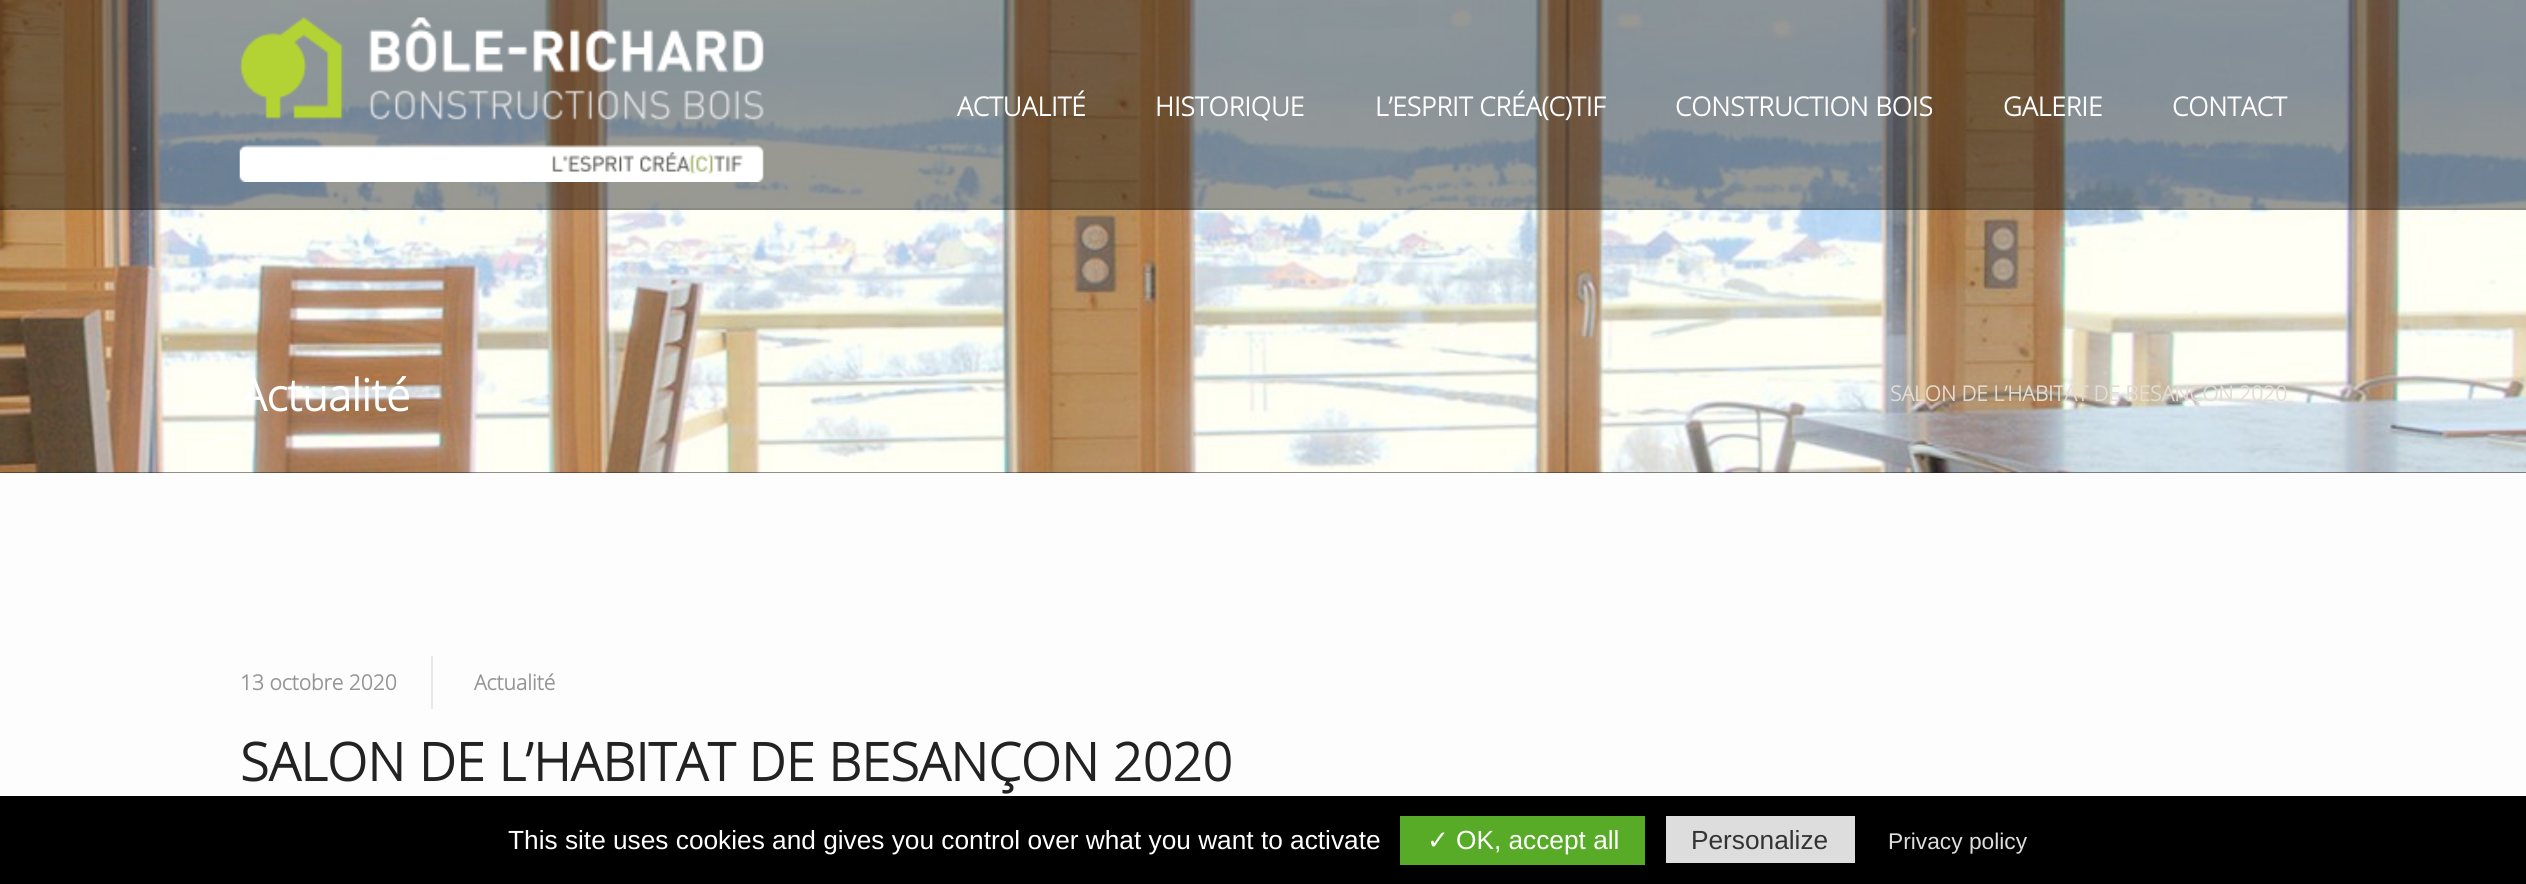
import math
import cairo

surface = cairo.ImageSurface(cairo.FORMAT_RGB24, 2526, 884)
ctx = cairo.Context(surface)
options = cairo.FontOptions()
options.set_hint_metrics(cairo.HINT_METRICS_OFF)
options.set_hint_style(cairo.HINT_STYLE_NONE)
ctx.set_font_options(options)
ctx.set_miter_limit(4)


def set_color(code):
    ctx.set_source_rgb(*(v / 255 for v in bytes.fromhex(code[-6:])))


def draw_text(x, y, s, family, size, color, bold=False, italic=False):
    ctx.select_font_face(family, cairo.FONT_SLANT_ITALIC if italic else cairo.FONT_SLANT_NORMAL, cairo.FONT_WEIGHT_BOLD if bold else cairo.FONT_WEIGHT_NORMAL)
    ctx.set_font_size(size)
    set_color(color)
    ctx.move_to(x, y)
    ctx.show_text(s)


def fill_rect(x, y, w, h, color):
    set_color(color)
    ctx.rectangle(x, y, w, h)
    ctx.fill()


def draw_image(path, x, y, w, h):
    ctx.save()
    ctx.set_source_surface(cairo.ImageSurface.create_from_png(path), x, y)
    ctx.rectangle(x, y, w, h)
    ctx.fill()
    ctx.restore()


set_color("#fdfdfd")
ctx.paint()
fill_rect(0, 472, 2526, 1, "#202020")
draw_image("assets/img1.png", 0, 0, 2526, 473)
ctx.set_source_rgba(0, 0, 0, 0.4)
ctx.rectangle(0, 0, 2526, 210)
ctx.fill()
ctx.set_source_rgba(0, 0, 0, 0.1)
ctx.rectangle(0, 208, 2526, 2)
ctx.fill()
draw_image("assets/img2.png", 239, 17, 525, 165)
draw_text(957, 116, "ACTUALITÉ", "Open Sans", 26.25, "#ffffff", bold=True)
draw_text(1155, 116, "HISTORIQUE", "Open Sans", 26.25, "#ffffff", bold=True)
draw_text(1375, 116, "L’ESPRIT CRÉA(C)TIF", "Open Sans", 26.25, "#ffffff", bold=True)
draw_text(1675, 116, "CONSTRUCTION BOIS", "Open Sans", 26.25, "#ffffff", bold=True)
draw_text(2003, 116, "GALERIE", "Open Sans", 26.25, "#ffffff", bold=True)
draw_text(2172, 116, "CONTACT", "Open Sans", 26.25, "#ffffff", bold=True)
draw_text(240, 411, "Actualité", "Open Sans", 44, "#ffffff", bold=True)
draw_text(1890, 401, "SALON DE L’HABITAT DE BESANÇON 2020", "Open Sans", 21, "#e2dcd3", bold=True)
draw_text(240, 690, "13 octobre 2020", "Open Sans", 21, "#959595", bold=True)
fill_rect(431, 656, 2, 53, "#e9e9e9")
draw_text(474, 690, "Actualité", "Open Sans", 21, "#959595", bold=True)
draw_text(240, 781, "SALON DE L’HABITAT DE BESANÇON 2020", "Open Sans", 52.5, "#222222", bold=True)
fill_rect(0, 796, 2526, 88, "#000000")
draw_text(508, 849, "This site uses cookies and gives you control over what you want to activate", "Liberation Sans", 26.25, "#ffffff")
fill_rect(1400, 816, 245, 49, "#57ab27")
draw_text(1427, 849, "✓", "DejaVu Sans", 26.25, "#ffffff")
draw_text(1456, 849, "OK, accept all", "Liberation Sans", 26.25, "#ffffff")
fill_rect(1666, 816, 189, 47, "#dddddd")
draw_text(1691, 849, "Personalize", "Liberation Sans", 26.25, "#333333")
draw_text(1888, 849, "Privacy policy", "Liberation Sans", 22.75, "#dddddd")
surface.write_to_png("output.png")
